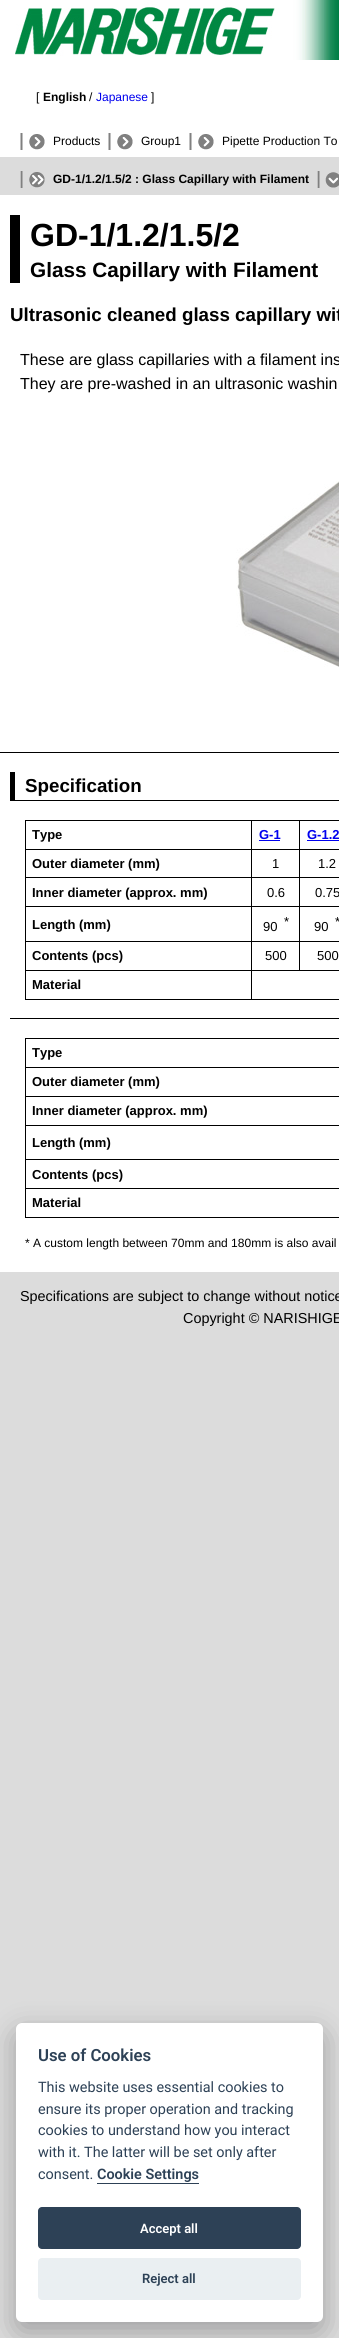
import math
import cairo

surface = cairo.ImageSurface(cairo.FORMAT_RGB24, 339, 2338)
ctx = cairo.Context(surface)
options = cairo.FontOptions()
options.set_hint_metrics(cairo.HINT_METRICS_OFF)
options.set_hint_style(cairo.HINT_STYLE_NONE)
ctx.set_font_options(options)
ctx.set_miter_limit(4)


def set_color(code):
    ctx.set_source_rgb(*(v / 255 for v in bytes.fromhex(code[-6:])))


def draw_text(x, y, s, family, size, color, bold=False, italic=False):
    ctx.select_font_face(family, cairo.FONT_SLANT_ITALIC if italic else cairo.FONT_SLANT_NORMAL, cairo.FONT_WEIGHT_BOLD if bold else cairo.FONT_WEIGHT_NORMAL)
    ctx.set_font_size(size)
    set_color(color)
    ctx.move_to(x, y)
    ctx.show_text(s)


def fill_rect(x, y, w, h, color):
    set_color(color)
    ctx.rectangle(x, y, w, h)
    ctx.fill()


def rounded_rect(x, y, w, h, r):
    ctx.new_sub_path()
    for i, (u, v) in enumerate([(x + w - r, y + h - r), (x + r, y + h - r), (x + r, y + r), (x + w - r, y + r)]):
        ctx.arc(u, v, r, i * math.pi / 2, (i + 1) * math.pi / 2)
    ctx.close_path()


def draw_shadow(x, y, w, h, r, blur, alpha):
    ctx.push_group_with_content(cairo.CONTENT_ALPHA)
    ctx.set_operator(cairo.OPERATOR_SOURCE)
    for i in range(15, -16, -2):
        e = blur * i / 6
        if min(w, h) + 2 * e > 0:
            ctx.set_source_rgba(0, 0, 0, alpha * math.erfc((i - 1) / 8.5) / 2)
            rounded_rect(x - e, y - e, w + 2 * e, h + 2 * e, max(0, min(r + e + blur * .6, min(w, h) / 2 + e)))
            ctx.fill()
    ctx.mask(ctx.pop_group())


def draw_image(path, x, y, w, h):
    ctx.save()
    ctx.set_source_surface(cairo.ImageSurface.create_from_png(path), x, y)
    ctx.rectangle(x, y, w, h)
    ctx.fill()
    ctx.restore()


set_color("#dcdcdc")
ctx.paint()
fill_rect(0, 0, 339, 157, "#ffffff")
draw_image("assets/img1.png", 15, 0, 324, 60)
draw_text(36, 101, "[", "Liberation Sans", 12, "#000000")
draw_text(43, 101, "English", "Liberation Sans", 12, "#000000", bold=True)
draw_text(89, 101, "/", "Liberation Sans", 12, "#000000")
draw_text(96, 101, "Japanese", "Liberation Sans", 12, "#0000ee")
draw_text(151, 101, "]", "Liberation Sans", 12, "#000000")
draw_image("assets/img2.png", 20, 133, 25, 17)
draw_text(53, 145, "Products", "Liberation Sans", 12, "#000000")
draw_image("assets/img2.png", 108, 133, 25, 17)
draw_text(141, 145, "Group1", "Liberation Sans", 12, "#000000")
draw_image("assets/img2.png", 189, 133, 25, 17)
draw_text(222, 145, "Pipette Production To", "Liberation Sans", 12, "#000000")
draw_image("assets/img3.png", 20, 171, 25, 17)
draw_text(53, 183, "GD-1/1.2/1.5/2 : Glass Capillary with Filament", "Liberation Sans", 12, "#000000", bold=True)
draw_image("assets/img4.png", 317, 171, 22, 17)
fill_rect(0, 195, 339, 1077, "#ffffff")
draw_text(30, 246, "GD-1/1.2/1.5/2", "Liberation Sans", 32, "#000000", bold=True)
fill_rect(10, 215, 10, 68, "#000000")
draw_text(30, 277, "Glass Capillary with Filament", "Liberation Sans", 20.75, "#000000", bold=True)
draw_text(10, 321, "Ultrasonic cleaned glass capillary wit", "Liberation Sans", 18.75, "#000000", bold=True)
draw_text(20, 365, "These are glass capillaries with a filament ins", "Liberation Sans", 16, "#000000")
draw_text(20, 389, "They are pre-washed in an ultrasonic washin", "Liberation Sans", 16, "#000000")
draw_image("assets/img5.png", 236, 481, 103, 186)
fill_rect(0, 752, 339, 1, "#000000")
fill_rect(10, 800, 329, 1, "#000000")
fill_rect(10, 772, 5, 29, "#000000")
draw_text(25, 792, "Specification", "Liberation Sans", 18.75, "#000000", bold=True)
fill_rect(25, 820, 314, 1, "#000000")
fill_rect(25, 999, 314, 1, "#000000")
fill_rect(25, 820, 1, 180, "#000000")
draw_text(32, 839, "Type", "Liberation Sans", 13, "#000000", bold=True)
draw_text(259, 839, "G-1", "Liberation Sans", 13, "#0000ee", bold=True)
fill_rect(259, 840, 21, 1, "#0000ee")
draw_text(307, 839, "G-1.2", "Liberation Sans", 13, "#0000ee", bold=True)
fill_rect(307, 840, 32, 1, "#0000ee")
fill_rect(25, 849, 314, 1, "#000000")
draw_text(32, 868, "Outer diameter (mm)", "Liberation Sans", 13, "#000000", bold=True)
draw_text(272, 868, "1", "Liberation Sans", 13, "#000000")
draw_text(318, 868, "1.2", "Liberation Sans", 13, "#000000")
fill_rect(25, 877, 314, 1, "#000000")
draw_text(32, 897, "Inner diameter (approx. mm)", "Liberation Sans", 13, "#000000", bold=True)
draw_text(267, 897, "0.6", "Liberation Sans", 13, "#000000")
draw_text(315, 897, "0.75", "Liberation Sans", 13, "#000000")
fill_rect(25, 906, 314, 1, "#000000")
draw_text(32, 929, "Length (mm)", "Liberation Sans", 13, "#000000", bold=True)
draw_text(284, 926, "*", "Liberation Sans", 13, "#000000")
draw_text(263, 931, "90", "Liberation Sans", 13, "#000000")
draw_text(335, 926, "*", "Liberation Sans", 13, "#000000")
draw_text(314, 931, "90", "Liberation Sans", 13, "#000000")
fill_rect(25, 941, 314, 1, "#000000")
draw_text(32, 960, "Contents (pcs)", "Liberation Sans", 13, "#000000", bold=True)
draw_text(265, 960, "500", "Liberation Sans", 13, "#000000")
fill_rect(25, 970, 314, 1, "#000000")
fill_rect(299, 820, 1, 151, "#000000")
draw_text(317, 960, "500", "Liberation Sans", 13, "#000000")
draw_text(32, 989, "Material", "Liberation Sans", 13, "#000000", bold=True)
fill_rect(251, 820, 1, 180, "#000000")
fill_rect(10, 1018, 329, 1, "#000000")
fill_rect(25, 1038, 314, 1, "#000000")
fill_rect(25, 1217, 314, 1, "#000000")
fill_rect(25, 1038, 1, 180, "#000000")
draw_text(32, 1057, "Type", "Liberation Sans", 13, "#000000", bold=True)
fill_rect(25, 1067, 314, 1, "#000000")
draw_text(32, 1086, "Outer diameter (mm)", "Liberation Sans", 13, "#000000", bold=True)
fill_rect(25, 1096, 314, 1, "#000000")
draw_text(32, 1115, "Inner diameter (approx. mm)", "Liberation Sans", 13, "#000000", bold=True)
fill_rect(25, 1125, 314, 1, "#000000")
draw_text(32, 1147, "Length (mm)", "Liberation Sans", 13, "#000000", bold=True)
fill_rect(25, 1159, 314, 1, "#000000")
draw_text(32, 1179, "Contents (pcs)", "Liberation Sans", 13, "#000000", bold=True)
fill_rect(25, 1188, 314, 1, "#000000")
draw_text(32, 1207, "Material", "Liberation Sans", 13, "#000000", bold=True)
draw_text(25, 1247, "* A custom length between 70mm and 180mm is also avail", "Liberation Sans", 12, "#000000")
draw_text(20, 1301, "Specifications are subject to change without notice", "Liberation Sans", 14.4, "#000000")
draw_text(183, 1323, "Copyright © NARISHIGE", "Liberation Sans", 14.4, "#000000")
set_color("#020203")
draw_shadow(16, 2033, 307, 299, 6, 15, 0.28)
set_color("#ffffff")
rounded_rect(16, 2023, 307, 299, 6)
ctx.fill()
draw_text(38, 2061, "Use of Cookies", "Roboto SemiBold", 16.75, "#2d4156")
draw_text(38, 2092, "This website uses essential cookies to", "Roboto", 14.4, "#2d4156")
draw_text(38, 2114, "ensure its proper operation and tracking", "Roboto", 14.4, "#2d4156")
draw_text(38, 2135, "cookies to understand how you interact", "Roboto", 14.4, "#2d4156")
draw_text(38, 2157, "with it. The latter will be set only after", "Roboto", 14.4, "#2d4156")
draw_text(38, 2179, "consent.", "Roboto", 14.4, "#2d4156")
draw_text(97, 2179, "Cookie Settings", "Roboto SemiBold", 14.4, "#2d4156")
fill_rect(97, 2183, 102, 1, "#2d4156")
rounded_rect(38, 2207, 263, 42, 4)
ctx.fill()
draw_text(140, 2233, "Accept all", "Roboto SemiBold", 13, "#ffffff")
set_color("#eaeff2")
rounded_rect(38, 2258, 263, 42, 4)
ctx.fill()
draw_text(142, 2283, "Reject all", "Roboto SemiBold", 13, "#2d4156")
surface.write_to_png("output.png")
